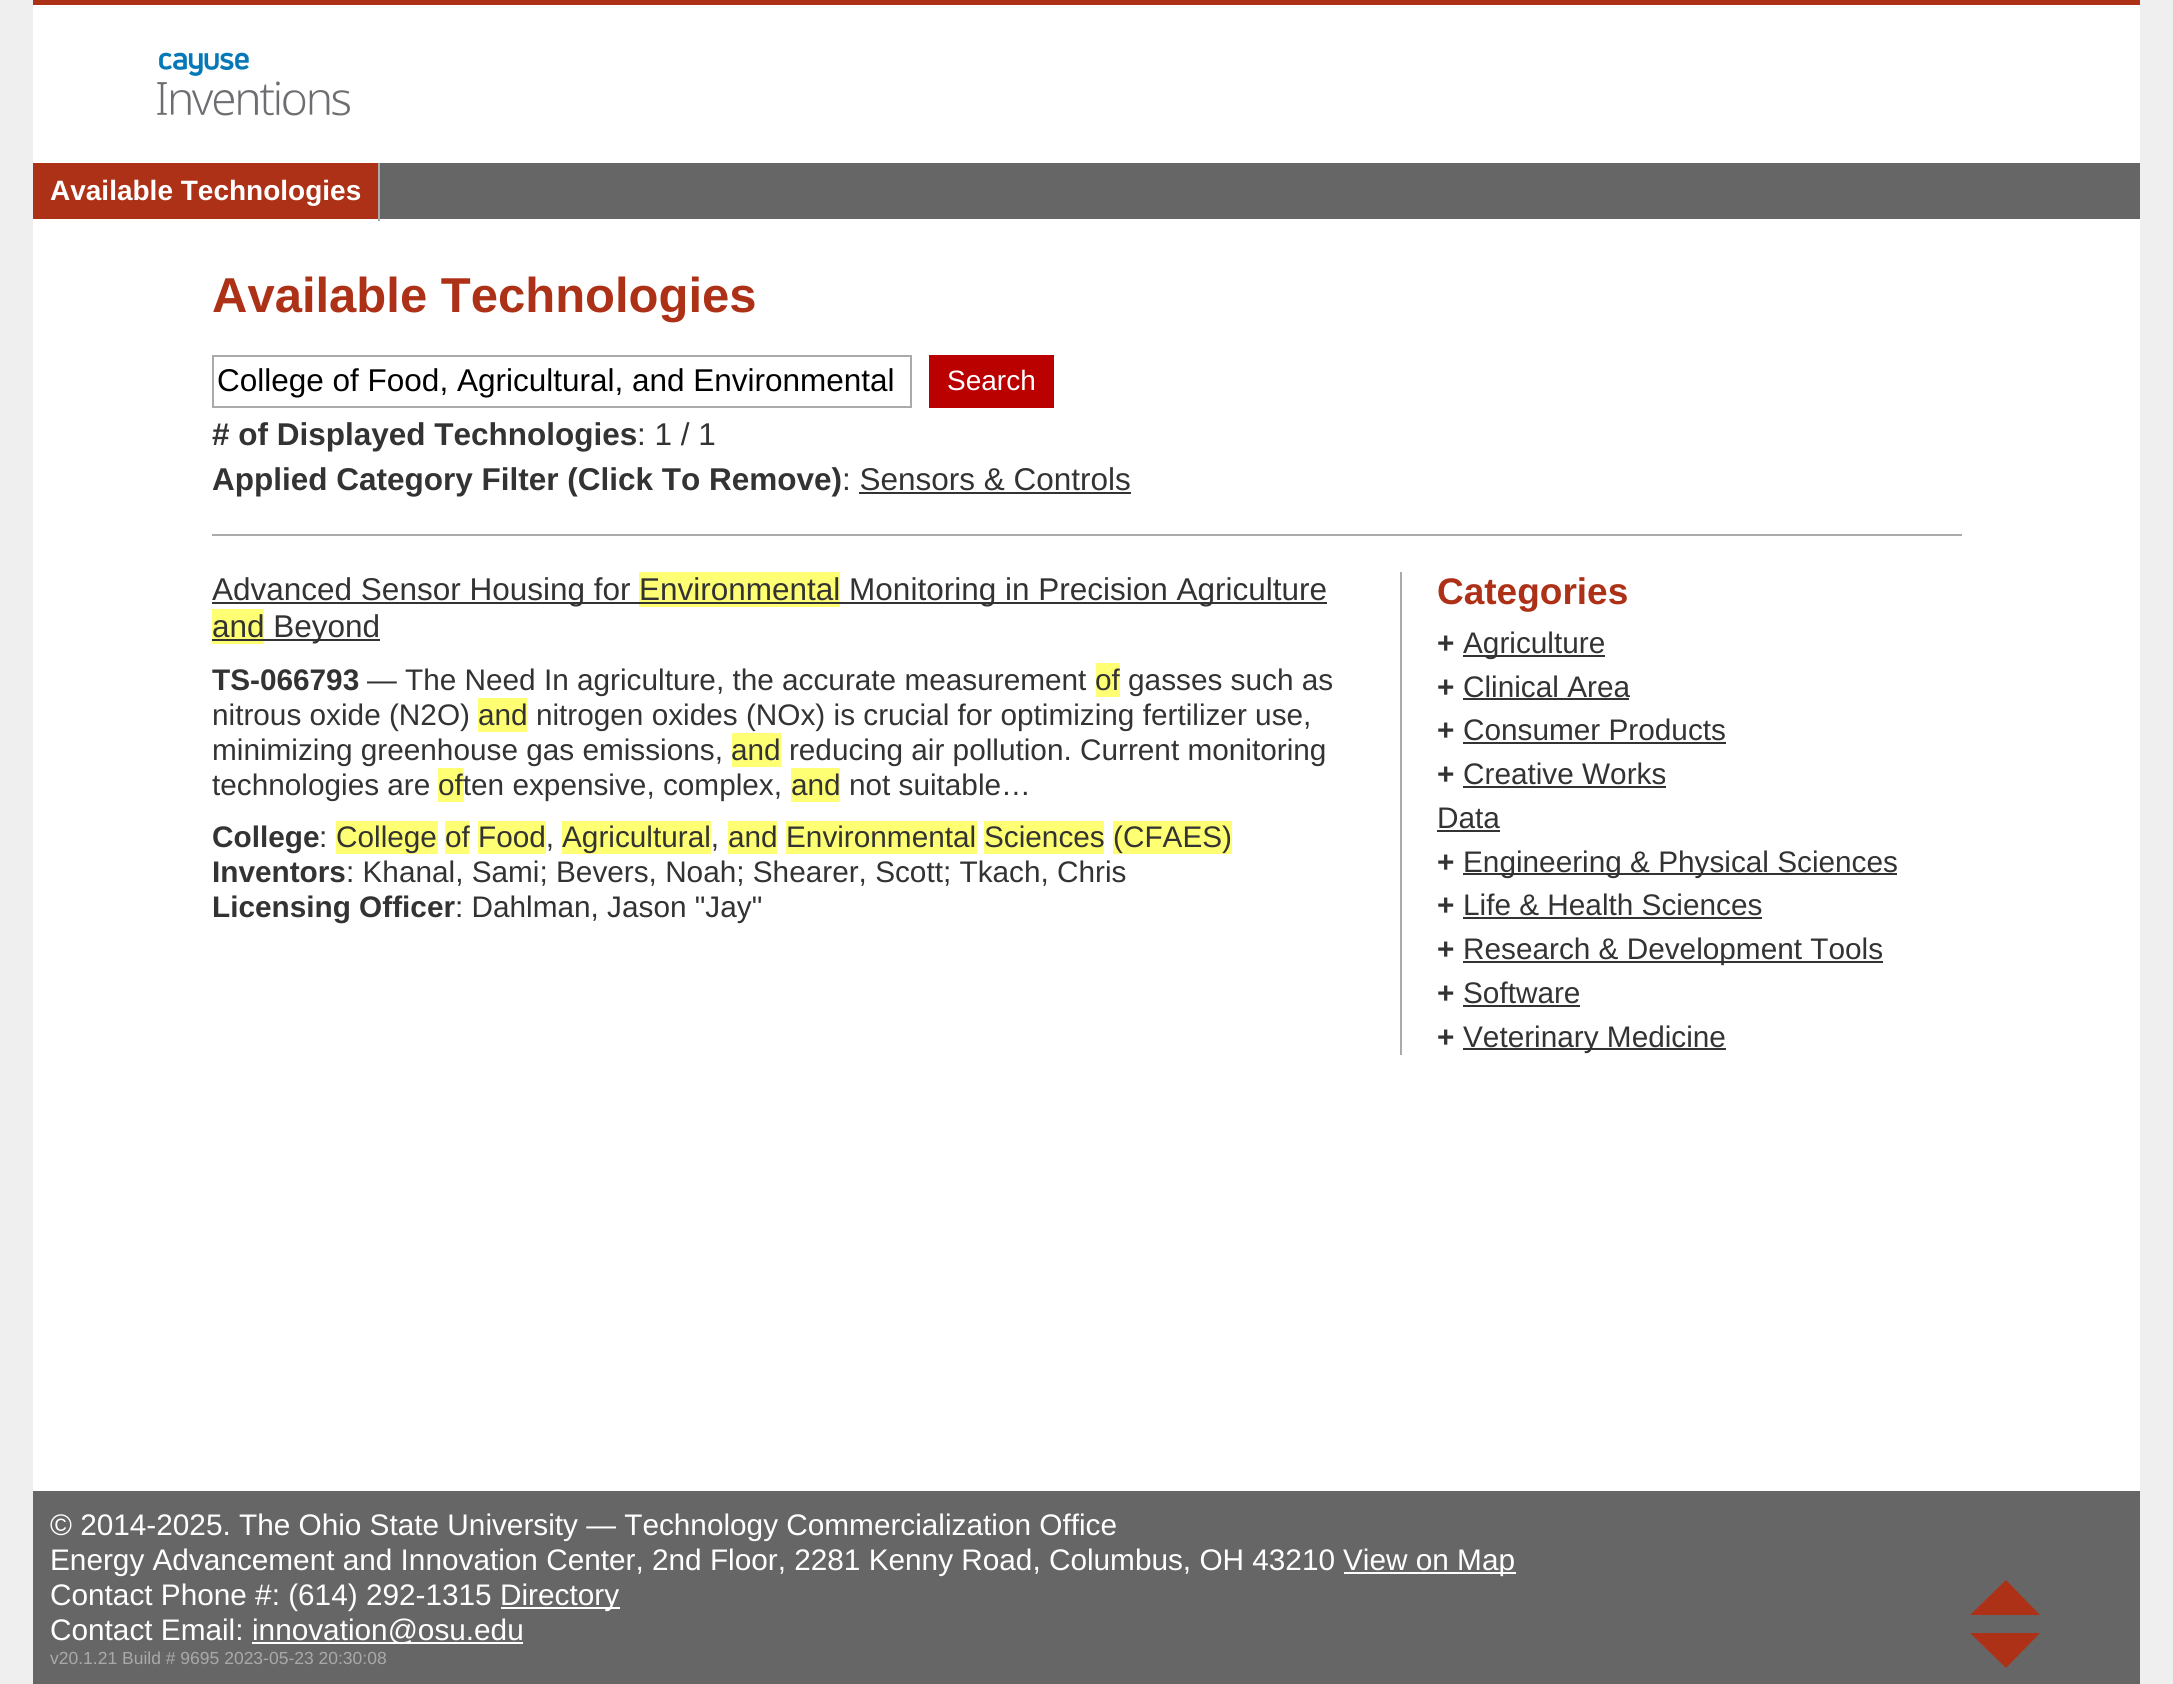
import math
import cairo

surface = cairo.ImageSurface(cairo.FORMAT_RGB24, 2173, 1684)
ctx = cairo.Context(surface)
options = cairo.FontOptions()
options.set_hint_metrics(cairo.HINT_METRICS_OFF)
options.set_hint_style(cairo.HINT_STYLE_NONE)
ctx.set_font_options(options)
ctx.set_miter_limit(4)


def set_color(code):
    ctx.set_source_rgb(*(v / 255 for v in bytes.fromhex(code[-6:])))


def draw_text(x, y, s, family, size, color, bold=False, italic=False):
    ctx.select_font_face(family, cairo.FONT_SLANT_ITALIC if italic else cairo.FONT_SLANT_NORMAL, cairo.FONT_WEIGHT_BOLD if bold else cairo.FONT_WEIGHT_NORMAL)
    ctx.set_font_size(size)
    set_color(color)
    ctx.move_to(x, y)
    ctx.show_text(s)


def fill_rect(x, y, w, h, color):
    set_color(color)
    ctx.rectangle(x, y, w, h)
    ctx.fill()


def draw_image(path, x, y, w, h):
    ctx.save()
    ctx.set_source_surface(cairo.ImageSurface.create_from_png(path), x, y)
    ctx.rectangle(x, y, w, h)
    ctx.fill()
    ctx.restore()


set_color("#efefef")
ctx.paint()
fill_rect(33, 5, 2107, 1486, "#ffffff")
fill_rect(33, 0, 2107, 5, "#ad3117")
draw_image("assets/img1.png", 157, 52, 193, 64)
fill_rect(380, 163, 1760, 56, "#666666")
fill_rect(378, 163, 2, 58, "#aaaaaa")
fill_rect(33, 163, 345, 56, "#ad3117")
draw_text(50, 200, "Available Technologies", "Liberation Sans", 28, "#ffffff", bold=True)
draw_text(212, 312, "Available Technologies", "Liberation Sans", 49, "#ad3117", bold=True)
ctx.rectangle(213, 356, 698, 51)
set_color("#aaaaaa")
ctx.stroke()
draw_text(217, 391, "College of Food, Agricultural, and Environmental", "Liberation Sans", 31.5, "#000000")
fill_rect(929, 355, 125, 53, "#bb0000")
draw_text(947, 390, "Search", "Liberation Sans", 28, "#ffffff")
draw_text(212, 445, "# of Displayed Technologies", "Liberation Sans", 31.5, "#333333", bold=True)
draw_text(637, 445, ": 1 / 1", "Liberation Sans", 31.5, "#333333")
draw_text(212, 490, "Applied Category Filter (Click To Remove)", "Liberation Sans", 31.5, "#333333", bold=True)
draw_text(842, 490, ": Sensors & Controls", "Liberation Sans", 31.5, "#333333")
fill_rect(859, 492, 272, 2, "#333333")
fill_rect(212, 534, 1750, 2, "#aaaaaa")
fill_rect(212, 602, 427, 2, "#333333")
draw_text(212, 600, "Advanced Sensor Housing for", "Liberation Sans", 31.5, "#333333")
fill_rect(639, 572, 201, 35, "#ffff73")
fill_rect(639, 602, 688, 2, "#333333")
draw_text(639, 600, "Environmental Monitoring in Precision Agriculture", "Liberation Sans", 31.5, "#333333")
fill_rect(212, 609, 52, 35, "#ffff73")
fill_rect(212, 639, 168, 2, "#333333")
draw_text(212, 637, "and Beyond", "Liberation Sans", 31.5, "#333333")
draw_text(212, 690, "TS-066793", "Liberation Sans", 29.75, "#333333", bold=True)
draw_text(367, 690, "— The Need In agriculture, the accurate measurement", "Liberation Sans", 29.75, "#333333")
fill_rect(1096, 663, 24, 34, "#ffff73")
draw_text(1095, 690, "of gasses such as", "Liberation Sans", 29.75, "#333333")
draw_text(212, 725, "nitrous oxide (N2O)", "Liberation Sans", 29.75, "#333333")
fill_rect(478, 698, 49, 34, "#ffff73")
draw_text(478, 725, "and nitrogen oxides (NOx) is crucial for optimizing fertilizer use,", "Liberation Sans", 29.75, "#333333")
draw_text(212, 760, "minimizing greenhouse gas emissions,", "Liberation Sans", 29.75, "#333333")
fill_rect(732, 733, 49, 34, "#ffff73")
draw_text(731, 760, "and reducing air pollution. Current monitoring", "Liberation Sans", 29.75, "#333333")
draw_text(212, 795, "technologies are", "Liberation Sans", 29.75, "#333333")
fill_rect(438, 768, 26, 34, "#ffff73")
draw_text(438, 795, "often expensive, complex,", "Liberation Sans", 29.75, "#333333")
fill_rect(791, 768, 49, 34, "#ffff73")
draw_text(791, 795, "and not suitable…", "Liberation Sans", 29.75, "#333333")
draw_text(212, 847, "College", "Liberation Sans", 29.75, "#333333", bold=True)
draw_text(319, 847, ":", "Liberation Sans", 29.75, "#333333")
fill_rect(336, 821, 102, 33, "#ffff73")
draw_text(336, 847, "College", "Liberation Sans", 29.75, "#333333")
fill_rect(445, 821, 24, 33, "#ffff73")
draw_text(445, 847, "of", "Liberation Sans", 29.75, "#333333")
fill_rect(478, 821, 68, 33, "#ffff73")
draw_text(478, 847, "Food,", "Liberation Sans", 29.75, "#333333")
fill_rect(562, 821, 149, 33, "#ffff73")
draw_text(562, 847, "Agricultural,", "Liberation Sans", 29.75, "#333333")
fill_rect(728, 821, 49, 33, "#ffff73")
draw_text(728, 847, "and", "Liberation Sans", 29.75, "#333333")
fill_rect(786, 821, 191, 33, "#ffff73")
draw_text(786, 847, "Environmental", "Liberation Sans", 29.75, "#333333")
fill_rect(984, 821, 120, 33, "#ffff73")
draw_text(984, 847, "Sciences", "Liberation Sans", 29.75, "#333333")
fill_rect(1113, 821, 119, 33, "#ffff73")
draw_text(1113, 847, "(CFAES)", "Liberation Sans", 29.75, "#333333")
draw_text(212, 882, "Inventors", "Liberation Sans", 29.75, "#333333", bold=True)
draw_text(346, 882, ": Khanal, Sami; Bevers, Noah; Shearer, Scott; Tkach, Chris", "Liberation Sans", 29.75, "#333333")
draw_text(212, 917, "Licensing Officer", "Liberation Sans", 29.75, "#333333", bold=True)
draw_text(455, 917, ": Dahlman, Jason \"Jay\"", "Liberation Sans", 29.75, "#333333")
fill_rect(1400, 572, 2, 483, "#aaaaaa")
draw_text(1437, 604, "Categories", "Liberation Sans", 37, "#ad3117", bold=True)
draw_text(1437, 653, "+", "Liberation Sans", 29.75, "#333333", bold=True)
fill_rect(1463, 655, 142, 2, "#333333")
draw_text(1463, 653, "Agriculture", "Liberation Sans", 29.75, "#333333")
draw_text(1437, 697, "+", "Liberation Sans", 29.75, "#333333", bold=True)
draw_text(1463, 697, "Clinical Area", "Liberation Sans", 29.75, "#333333")
fill_rect(1463, 698, 166, 2, "#333333")
draw_text(1437, 740, "+", "Liberation Sans", 29.75, "#333333", bold=True)
draw_text(1463, 740, "Consumer Products", "Liberation Sans", 29.75, "#333333")
fill_rect(1463, 742, 263, 2, "#333333")
draw_text(1437, 784, "+", "Liberation Sans", 29.75, "#333333", bold=True)
draw_text(1463, 784, "Creative Works", "Liberation Sans", 29.75, "#333333")
fill_rect(1463, 786, 203, 2, "#333333")
draw_text(1437, 828, "Data", "Liberation Sans", 29.75, "#333333")
fill_rect(1437, 830, 63, 2, "#333333")
draw_text(1437, 872, "+", "Liberation Sans", 29.75, "#333333", bold=True)
fill_rect(1463, 873, 434, 2, "#333333")
draw_text(1463, 872, "Engineering & Physical Sciences", "Liberation Sans", 29.75, "#333333")
draw_text(1437, 915, "+", "Liberation Sans", 29.75, "#333333", bold=True)
draw_text(1463, 915, "Life & Health Sciences", "Liberation Sans", 29.75, "#333333")
fill_rect(1463, 917, 299, 2, "#333333")
draw_text(1437, 959, "+", "Liberation Sans", 29.75, "#333333", bold=True)
fill_rect(1463, 961, 420, 2, "#333333")
draw_text(1463, 959, "Research & Development Tools", "Liberation Sans", 29.75, "#333333")
draw_text(1437, 1003, "+", "Liberation Sans", 29.75, "#333333", bold=True)
draw_text(1463, 1003, "Software", "Liberation Sans", 29.75, "#333333")
fill_rect(1463, 1005, 117, 2, "#333333")
draw_text(1437, 1047, "+", "Liberation Sans", 29.75, "#333333", bold=True)
fill_rect(1463, 1048, 263, 2, "#333333")
draw_text(1463, 1047, "Veterinary Medicine", "Liberation Sans", 29.75, "#333333")
fill_rect(33, 1491, 2107, 193, "#666666")
draw_text(50, 1535, "© 2014-2025. The Ohio State University — Technology Commercialization Office", "Liberation Sans", 29.75, "#ffffff")
draw_text(50, 1570, "Energy Advancement and Innovation Center, 2nd Floor, 2281 Kenny Road, Columbus, OH 43210", "Liberation Sans", 29.75, "#ffffff")
fill_rect(1344, 1572, 172, 2, "#ffffff")
draw_text(1343, 1570, "View on Map", "Liberation Sans", 29.75, "#ffffff")
draw_text(50, 1605, "Contact Phone #: (614) 292-1315", "Liberation Sans", 29.75, "#ffffff")
fill_rect(501, 1607, 119, 2, "#ffffff")
draw_text(500, 1605, "Directory", "Liberation Sans", 29.75, "#ffffff")
draw_text(50, 1640, "Contact Email:", "Liberation Sans", 29.75, "#ffffff")
fill_rect(252, 1642, 271, 2, "#ffffff")
draw_text(252, 1640, "innovation@osu.edu", "Liberation Sans", 29.75, "#ffffff")
draw_text(50, 1664, "v20.1.21 Build # 9695 2023-05-23 20:30:08", "Liberation Sans", 17.5, "#a9a9a9")
set_color("#ad3117")
ctx.new_path()
ctx.move_to(2040, 1615)
ctx.line_to(1970, 1615)
ctx.line_to(2006, 1580)
ctx.close_path()
ctx.fill()
ctx.new_path()
ctx.move_to(1970, 1633)
ctx.line_to(2040, 1633)
ctx.line_to(2006, 1668)
ctx.close_path()
ctx.fill()
surface.write_to_png("output.png")
